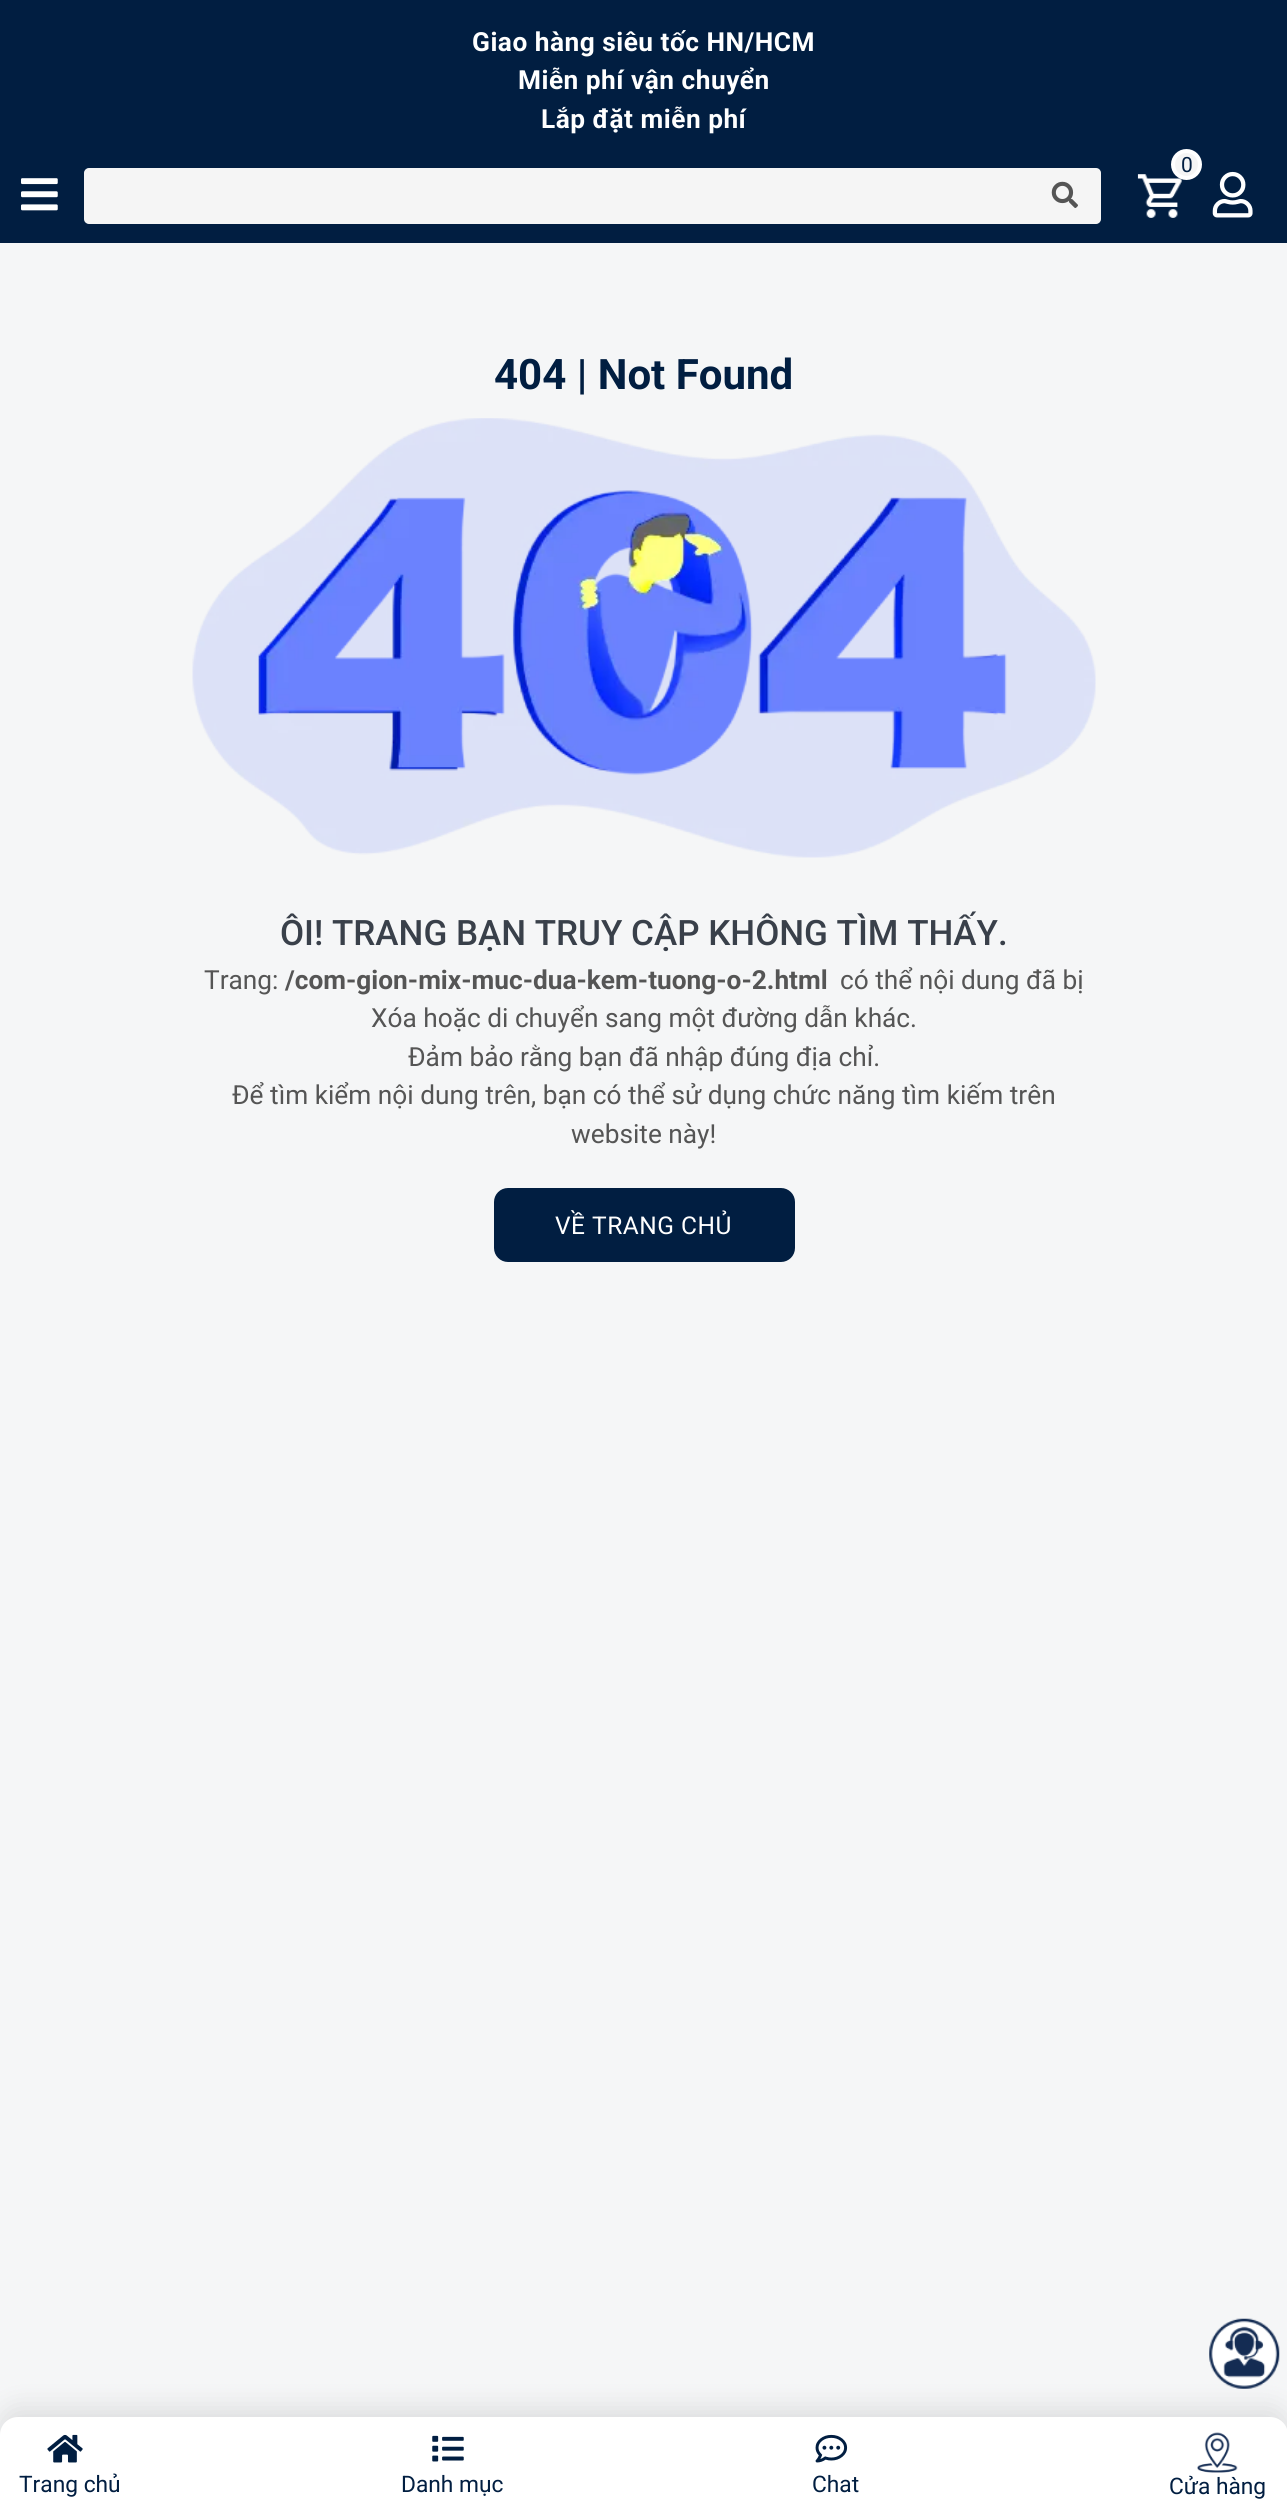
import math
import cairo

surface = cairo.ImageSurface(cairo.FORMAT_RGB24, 1287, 2510)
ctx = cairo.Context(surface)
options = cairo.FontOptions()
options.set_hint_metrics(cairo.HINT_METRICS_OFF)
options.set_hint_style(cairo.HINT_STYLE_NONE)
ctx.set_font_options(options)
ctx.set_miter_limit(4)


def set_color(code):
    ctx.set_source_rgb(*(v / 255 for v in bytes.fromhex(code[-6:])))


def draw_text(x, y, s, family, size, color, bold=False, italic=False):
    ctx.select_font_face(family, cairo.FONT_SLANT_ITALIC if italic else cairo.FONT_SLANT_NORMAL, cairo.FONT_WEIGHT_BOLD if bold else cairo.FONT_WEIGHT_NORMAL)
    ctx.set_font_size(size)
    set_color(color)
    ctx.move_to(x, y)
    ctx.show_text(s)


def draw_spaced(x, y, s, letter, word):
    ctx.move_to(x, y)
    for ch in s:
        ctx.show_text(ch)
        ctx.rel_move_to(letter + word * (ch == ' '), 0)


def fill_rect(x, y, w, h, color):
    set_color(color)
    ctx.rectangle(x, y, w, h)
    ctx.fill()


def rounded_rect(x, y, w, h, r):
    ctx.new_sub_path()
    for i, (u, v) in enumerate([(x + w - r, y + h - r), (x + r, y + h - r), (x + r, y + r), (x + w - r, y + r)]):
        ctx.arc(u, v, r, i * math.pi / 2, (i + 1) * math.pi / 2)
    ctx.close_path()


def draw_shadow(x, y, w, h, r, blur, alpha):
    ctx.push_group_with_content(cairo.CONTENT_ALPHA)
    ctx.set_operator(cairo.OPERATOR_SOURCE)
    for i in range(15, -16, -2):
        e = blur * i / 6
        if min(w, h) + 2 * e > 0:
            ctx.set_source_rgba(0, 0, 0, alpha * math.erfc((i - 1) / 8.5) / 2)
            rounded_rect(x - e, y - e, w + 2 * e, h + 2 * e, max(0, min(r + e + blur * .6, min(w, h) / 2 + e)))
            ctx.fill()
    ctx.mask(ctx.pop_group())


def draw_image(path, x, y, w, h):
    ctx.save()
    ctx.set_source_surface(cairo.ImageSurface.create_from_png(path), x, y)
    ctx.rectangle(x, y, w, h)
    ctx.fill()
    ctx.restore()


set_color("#f5f6f7")
ctx.paint()
fill_rect(0, 0, 1287, 243, "#011e41")
ctx.select_font_face("Roboto", cairo.FONT_SLANT_NORMAL, cairo.FONT_WEIGHT_BOLD)
ctx.set_font_size(26.25)
set_color("#ffffff")
draw_spaced(472, 51, "Giao hàng siêu tốc HN/HCM", 0.5, 0)
draw_spaced(518, 89, "Miễn phí vận chuyển", 0.5, 0)
draw_spaced(541, 128, "Lắp đặt miễn phí", 0.5, 0)
draw_image("assets/img1.png", 1137, 174, 45, 44)
set_color("#f5f5f5")
ctx.arc(1186.5, 164.5, 13.5, 0, 2 * math.pi)
ctx.fill_preserve()
set_color("#ffffff")
ctx.set_line_width(4)
ctx.stroke()
draw_text(1181, 172, "0", "Roboto", 21, "#011e41")
draw_image("assets/img2.png", 21, 178, 37, 33)
set_color("#f5f5f5")
rounded_rect(85, 169, 1015, 54, 4)
ctx.fill_preserve()
ctx.set_line_width(2)
ctx.stroke()
draw_image("assets/img3.png", 1051, 181, 27, 27)
draw_image("assets/img4.png", 1212, 171, 41, 47)
draw_text(494, 389, "404 | Not Found", "Roboto", 42, "#011e41", bold=True)
draw_image("assets/img5.png", 192, 418, 904, 440)
draw_text(280, 945, "ÔI! TRANG BẠN TRUY CẬP KHÔNG TÌM THẤY.", "Roboto Medium", 35, "#39404a")
draw_text(204, 989, "Trang:", "Roboto", 26.25, "#555555")
draw_text(285, 989, "/com-gion-mix-muc-dua-kem-tuong-o-2.html", "Roboto", 26.25, "#555555", bold=True)
draw_text(840, 989, "có thể nội dung đã bị", "Roboto", 26.25, "#555555")
draw_text(371, 1027, "Xóa hoặc di chuyển sang một đường dẫn khác.", "Roboto", 26.25, "#555555")
draw_text(408, 1066, "Đảm bảo rằng bạn đã nhập đúng địa chỉ.", "Roboto", 26.25, "#555555")
draw_text(232, 1104, "Để tìm kiểm nội dung trên, bạn có thể sử dụng chức năng tìm kiếm trên", "Roboto", 26.25, "#555555")
draw_text(571, 1143, "website này!", "Roboto", 26.25, "#555555")
set_color("#011e41")
rounded_rect(494, 1188, 301, 74, 14)
ctx.fill()
ctx.set_font_size(24.5)
set_color("#ffffff")
draw_spaced(555, 1234, "VỀ TRANG CHỦ", 0.5, 0)
set_color("#000000")
draw_shadow(0, 2408, 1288, 95, 18, 13, 0.1)
set_color("#ffffff")
ctx.arc(1244, 2354, 35, 0, 2 * math.pi)
ctx.fill()
draw_image("assets/img6.png", 1209, 2318, 71, 71)
ctx.new_path()
ctx.move_to(18, 2417)
ctx.line_to(1270, 2417)
ctx.curve_to(1280, 2417, 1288, 2425, 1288, 2435)
ctx.line_to(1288, 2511)
ctx.line_to(0, 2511)
ctx.line_to(0, 2435)
ctx.curve_to(0, 2425, 8, 2417, 18, 2417)
ctx.close_path()
ctx.fill()
draw_image("assets/img7.png", 47, 2434, 36, 29)
draw_text(19, 2492, "Trang chủ", "Roboto", 22.75, "#011e41")
draw_image("assets/img8.png", 432, 2435, 32, 27)
draw_text(401, 2492, "Danh mục", "Roboto", 22.75, "#011e41")
draw_image("assets/img9.png", 815, 2434, 33, 29)
draw_text(812, 2492, "Chat", "Roboto", 22.75, "#011e41")
draw_image("assets/img10.png", 1197, 2432, 41, 41)
draw_text(1169, 2494, "Cửa hàng", "Roboto", 22.75, "#011e41")
surface.write_to_png("output.png")
